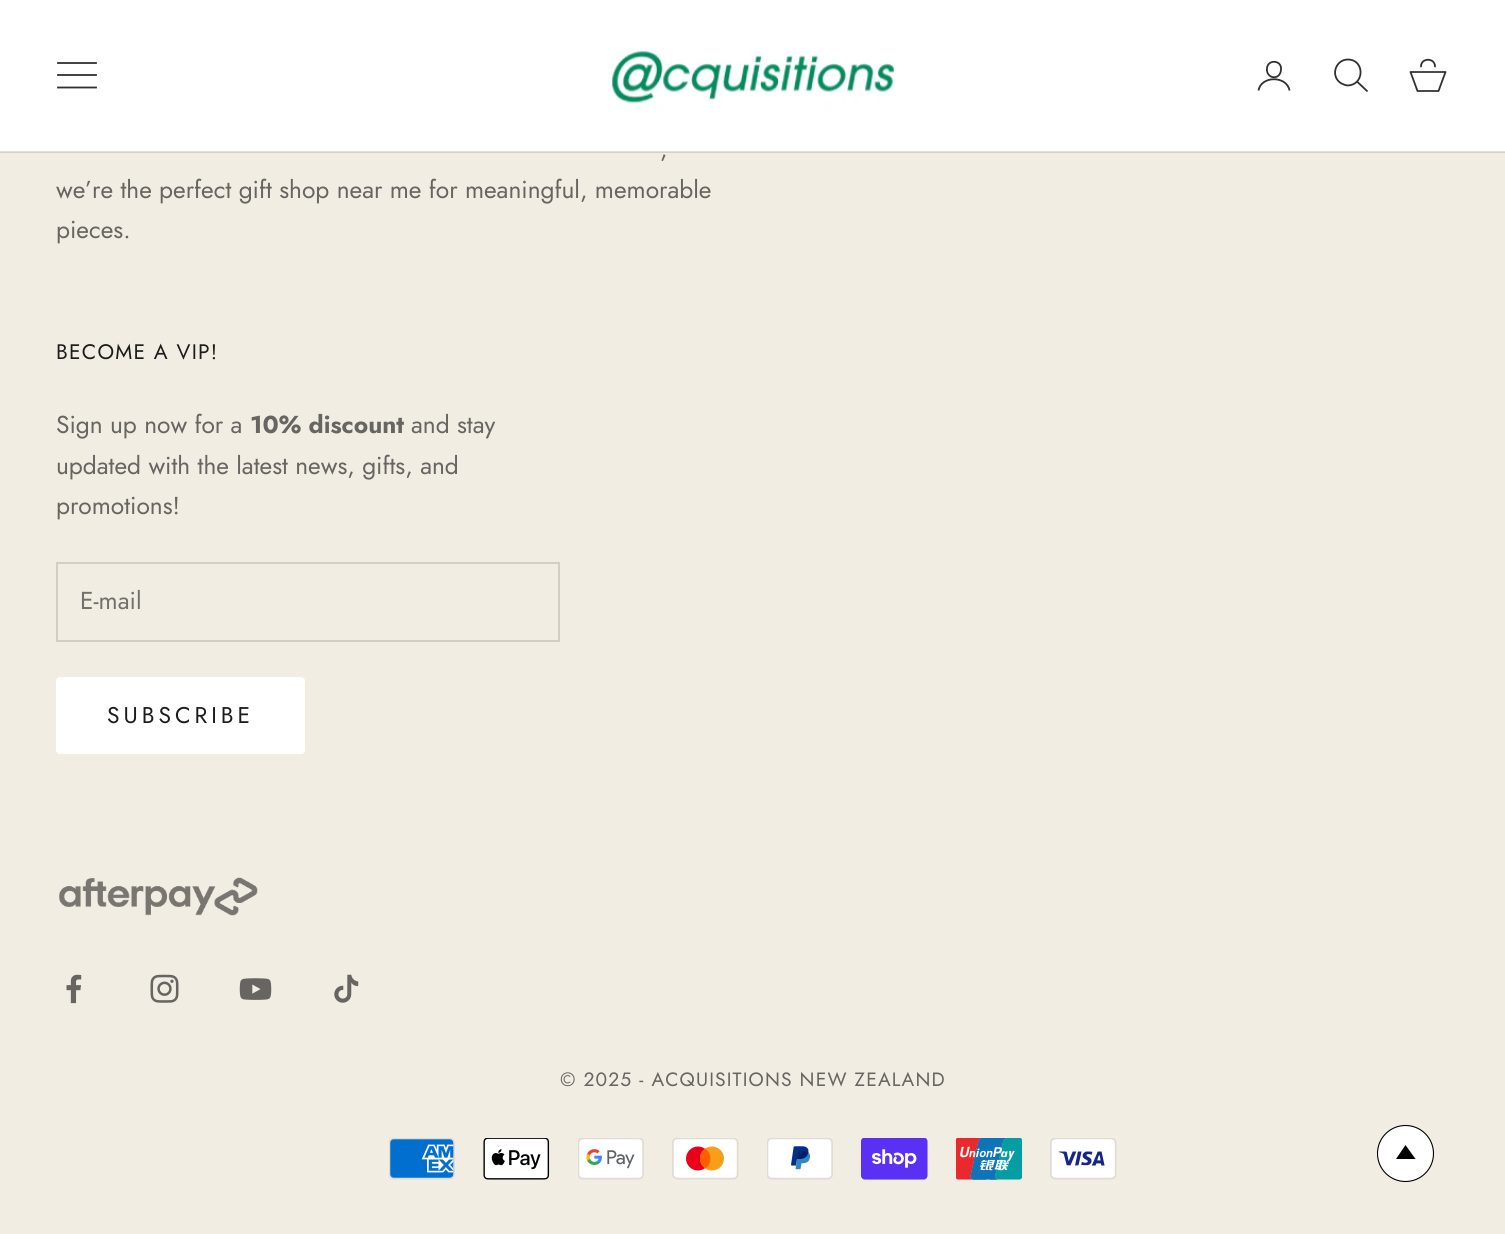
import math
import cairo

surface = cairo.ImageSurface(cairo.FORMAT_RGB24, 1505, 1234)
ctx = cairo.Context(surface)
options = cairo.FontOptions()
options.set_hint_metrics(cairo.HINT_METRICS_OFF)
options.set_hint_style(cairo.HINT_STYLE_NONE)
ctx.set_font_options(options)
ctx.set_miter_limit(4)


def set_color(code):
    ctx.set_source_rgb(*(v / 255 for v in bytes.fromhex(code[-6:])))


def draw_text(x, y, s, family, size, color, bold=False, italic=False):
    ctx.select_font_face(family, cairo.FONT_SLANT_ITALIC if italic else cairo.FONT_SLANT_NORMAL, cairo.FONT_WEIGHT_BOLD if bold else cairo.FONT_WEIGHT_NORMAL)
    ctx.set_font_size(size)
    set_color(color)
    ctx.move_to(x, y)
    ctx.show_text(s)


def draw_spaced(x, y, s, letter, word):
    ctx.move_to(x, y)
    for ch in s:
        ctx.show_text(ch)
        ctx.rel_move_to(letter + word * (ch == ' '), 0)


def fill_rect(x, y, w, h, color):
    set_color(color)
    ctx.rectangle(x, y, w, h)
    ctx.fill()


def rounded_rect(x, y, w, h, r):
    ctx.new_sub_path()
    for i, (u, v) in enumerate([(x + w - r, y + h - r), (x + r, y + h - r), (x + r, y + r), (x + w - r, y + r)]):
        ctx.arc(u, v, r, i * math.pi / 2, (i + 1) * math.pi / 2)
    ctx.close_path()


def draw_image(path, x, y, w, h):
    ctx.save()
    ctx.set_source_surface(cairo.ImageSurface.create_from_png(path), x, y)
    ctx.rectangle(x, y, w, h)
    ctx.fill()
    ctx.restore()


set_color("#f2ede2")
ctx.paint()
fill_rect(0, 0, 1505, 152, "#ffffff")
ctx.set_source_rgba(0.188, 0.188, 0.188, 0.15)
ctx.rectangle(0, 151, 1505, 2)
ctx.fill()
ctx.new_path()
ctx.move_to(58, 87.5)
ctx.line_to(96, 87.5)
ctx.move_to(58, 75)
ctx.line_to(96, 75)
ctx.move_to(58, 63)
ctx.line_to(96, 63)
set_color("#303030")
ctx.set_line_width(1.8)
ctx.set_line_cap(cairo.LINE_CAP_SQUARE)
ctx.stroke()
draw_image("assets/img1.png", 611, 50, 284, 61)
ctx.new_path()
ctx.move_to(1281, 69.5)
ctx.curve_to(1280.5, 81, 1265.5, 79, 1267, 68)
ctx.curve_to(1268, 59, 1282, 60, 1281, 69.5)
ctx.close_path()
ctx.set_line_cap(cairo.LINE_CAP_ROUND)
ctx.set_line_join(cairo.LINE_JOIN_ROUND)
ctx.stroke()
ctx.new_path()
ctx.move_to(1258.5, 90.5)
ctx.curve_to(1261, 75.5, 1287, 75.5, 1289.5, 90.5)
ctx.set_line_cap(cairo.LINE_CAP_BUTT)
ctx.set_line_join(cairo.LINE_JOIN_MITER)
ctx.stroke()
ctx.new_path()
ctx.move_to(1348, 59.5)
ctx.curve_to(1335, 59.5, 1330, 77, 1341.5, 83.5)
ctx.curve_to(1343.5, 84.5, 1346, 85.5, 1348, 85.5)
ctx.curve_to(1365, 84.5, 1364.5, 59.5, 1348, 59.5)
ctx.close_path()
ctx.stroke()
ctx.new_path()
ctx.move_to(1357.5, 82)
ctx.line_to(1367, 91)
ctx.set_line_cap(cairo.LINE_CAP_ROUND)
ctx.stroke()
ctx.new_path()
ctx.move_to(1410.5, 72)
ctx.line_to(1445.5, 72)
ctx.line_to(1438.5, 91)
ctx.line_to(1417.5, 91)
ctx.close_path()
ctx.move_to(1435, 66.5)
ctx.curve_to(1435, 57.5, 1421, 57.5, 1421, 66.5)
ctx.set_line_join(cairo.LINE_JOIN_ROUND)
ctx.stroke()
draw_text(660, 157, ",", "Jost", 24.5, "#676561")
draw_text(56, 198, "we’re the perfect gift shop near me for meaningful, memorable", "Jost", 24.5, "#676561")
draw_text(56, 238, "pieces.", "Jost", 24.5, "#676561")
ctx.set_font_size(21)
set_color("#1c1c1c")
draw_spaced(56, 359, "BECOME A VIP!", 1.25, 0)
draw_text(56, 433, "Sign up now for a", "Jost", 24.5, "#676561")
draw_text(250, 433, "10% discount", "Jost", 24.5, "#676561", bold=True)
draw_text(411, 433, "and stay", "Jost", 24.5, "#676561")
draw_text(56, 474, "updated with the latest news, gifts, and", "Jost", 24.5, "#676561")
draw_text(56, 514, "promotions!", "Jost", 24.5, "#676561")
ctx.rectangle(57, 563, 502, 78)
set_color("#d2cec4")
ctx.set_line_width(2)
ctx.set_line_cap(cairo.LINE_CAP_BUTT)
ctx.set_line_join(cairo.LINE_JOIN_MITER)
ctx.stroke()
draw_text(80, 609, "E-mail", "Jost", 24.5, "#72706b")
fill_rect(58, 679, 245, 73, "#ffffff")
rounded_rect(57, 678, 247, 75, 3)
ctx.stroke()
ctx.set_font_size(22.75)
set_color("#1c1c1c")
draw_spaced(107, 723, "SUBSCRIBE", 4, 0)
draw_image("assets/img2.png", 59, 877, 199, 39)
draw_image("assets/img3.png", 66, 974, 16, 30)
draw_image("assets/img4.png", 150, 974, 29, 29)
draw_image("assets/img5.png", 239, 978, 33, 22)
draw_image("assets/img6.png", 334, 974, 25, 29)
ctx.set_font_size(19.25)
set_color("#676561")
draw_spaced(560, 1086, "© 2025 - ACQUISITIONS NEW ZEALAND", 1.15, 0)
draw_image("assets/img7.png", 389, 1138, 66, 42)
draw_image("assets/img8.png", 483, 1138, 67, 42)
draw_image("assets/img9.png", 578, 1138, 66, 42)
draw_image("assets/img10.png", 672, 1138, 67, 42)
draw_image("assets/img11.png", 767, 1138, 66, 42)
draw_image("assets/img12.png", 861, 1138, 67, 42)
draw_image("assets/img13.png", 956, 1138, 66, 42)
draw_image("assets/img14.png", 1050, 1138, 67, 42)
set_color("#ffffff")
ctx.arc(1405.5, 1153.5, 28, 0, 2 * math.pi)
ctx.fill_preserve()
set_color("#000000")
ctx.set_line_width(1.1)
ctx.stroke()
ctx.new_path()
ctx.move_to(1405.5, 1145)
ctx.line_to(1396, 1159)
ctx.line_to(1415.5, 1159)
ctx.close_path()
ctx.fill()
surface.write_to_png("output.png")
